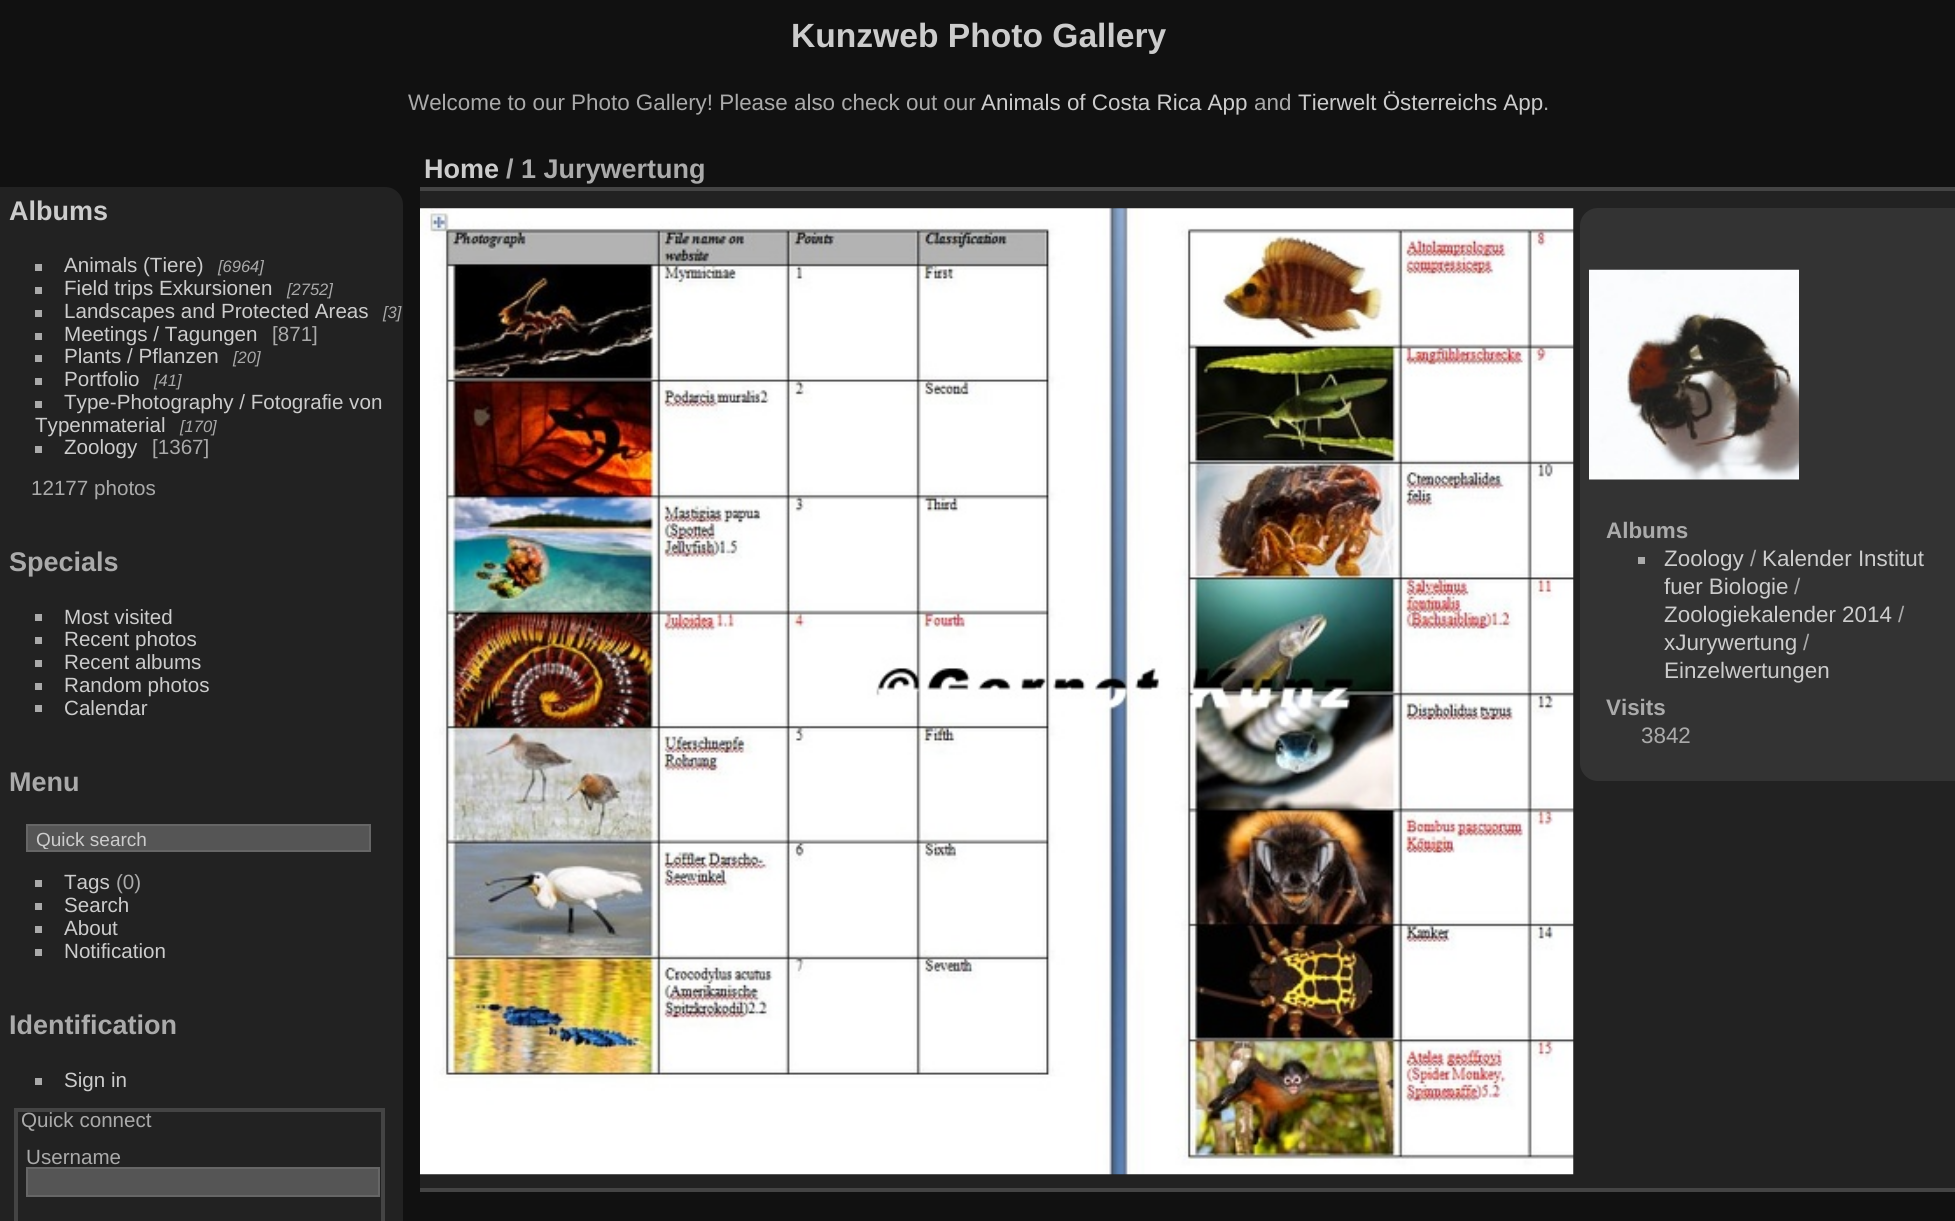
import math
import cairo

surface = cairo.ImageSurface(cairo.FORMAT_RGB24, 1955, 1221)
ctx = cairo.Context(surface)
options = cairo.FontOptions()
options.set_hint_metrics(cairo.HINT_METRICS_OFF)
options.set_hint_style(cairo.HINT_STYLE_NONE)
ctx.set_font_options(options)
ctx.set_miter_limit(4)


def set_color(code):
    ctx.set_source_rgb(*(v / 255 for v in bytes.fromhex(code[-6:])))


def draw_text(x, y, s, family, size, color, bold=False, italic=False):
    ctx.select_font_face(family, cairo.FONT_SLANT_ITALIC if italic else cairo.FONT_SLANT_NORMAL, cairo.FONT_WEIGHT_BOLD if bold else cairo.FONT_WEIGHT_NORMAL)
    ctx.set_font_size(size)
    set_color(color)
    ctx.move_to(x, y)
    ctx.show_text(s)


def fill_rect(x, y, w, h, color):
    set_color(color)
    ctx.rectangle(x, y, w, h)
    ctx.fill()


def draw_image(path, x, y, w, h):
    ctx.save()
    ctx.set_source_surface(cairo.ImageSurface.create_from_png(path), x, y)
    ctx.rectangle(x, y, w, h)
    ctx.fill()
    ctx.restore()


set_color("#111111")
ctx.paint()
draw_text(791, 47, "Kunzweb Photo Gallery", "Liberation Sans", 33.6, "#cccccc", bold=True)
draw_text(408, 110, "Welcome to our Photo Gallery! Please also check out our", "Liberation Sans", 22.4, "#aaaaaa")
draw_text(981, 110, "Animals of Costa Rica App", "Liberation Sans", 22.4, "#cccccc")
draw_text(1254, 110, "and", "Liberation Sans", 22.4, "#aaaaaa")
draw_text(1298, 110, "Tierwelt Österreichs App", "Liberation Sans", 22.4, "#cccccc")
draw_text(1543, 110, ".", "Liberation Sans", 22.4, "#aaaaaa")
set_color("#222222")
ctx.new_path()
ctx.move_to(0, 187)
ctx.line_to(385, 187)
ctx.curve_to(395, 187, 403, 195, 403, 205)
ctx.line_to(403, 1221)
ctx.curve_to(403, 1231, 395, 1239, 385, 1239)
ctx.line_to(0, 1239)
ctx.close_path()
ctx.fill()
draw_text(9, 220, "Albums", "Liberation Sans", 27, "#cccccc", bold=True)
fill_rect(35, 264, 7, 7, "#aaaaaa")
draw_text(64, 272, "Animals (Tiere)", "Liberation Sans", 20.6, "#cccccc")
draw_text(218, 272, "[6964]", "Liberation Sans", 16.5, "#aaaaaa", italic=True)
fill_rect(35, 287, 7, 7, "#aaaaaa")
draw_text(64, 295, "Field trips Exkursionen", "Liberation Sans", 20.6, "#cccccc")
draw_text(287, 295, "[2752]", "Liberation Sans", 16.5, "#aaaaaa", italic=True)
fill_rect(35, 310, 7, 7, "#aaaaaa")
draw_text(64, 318, "Landscapes and Protected Areas", "Liberation Sans", 20.6, "#cccccc")
draw_text(383, 318, "[3]", "Liberation Sans", 16.5, "#aaaaaa", italic=True)
fill_rect(35, 333, 7, 7, "#aaaaaa")
draw_text(64, 341, "Meetings / Tagungen", "Liberation Sans", 20.6, "#cccccc")
draw_text(272, 341, "[871]", "Liberation Sans", 20.6, "#aaaaaa")
fill_rect(35, 355, 7, 7, "#aaaaaa")
draw_text(64, 363, "Plants / Pflanzen", "Liberation Sans", 20.6, "#cccccc")
draw_text(233, 363, "[20]", "Liberation Sans", 16.5, "#aaaaaa", italic=True)
fill_rect(35, 378, 7, 7, "#aaaaaa")
draw_text(64, 386, "Portfolio", "Liberation Sans", 20.6, "#cccccc")
draw_text(154, 386, "[41]", "Liberation Sans", 16.5, "#aaaaaa", italic=True)
fill_rect(35, 401, 7, 7, "#aaaaaa")
draw_text(64, 409, "Type-Photography / Fotografie von", "Liberation Sans", 20.6, "#cccccc")
draw_text(35, 432, "Typenmaterial", "Liberation Sans", 20.6, "#cccccc")
draw_text(180, 432, "[170]", "Liberation Sans", 16.5, "#aaaaaa", italic=True)
fill_rect(35, 446, 7, 7, "#aaaaaa")
draw_text(64, 454, "Zoology", "Liberation Sans", 20.6, "#cccccc")
draw_text(152, 454, "[1367]", "Liberation Sans", 20.6, "#aaaaaa")
draw_text(31, 495, "12177 photos", "Liberation Sans", 20.6, "#aaaaaa")
draw_text(9, 571, "Specials", "Liberation Sans", 27, "#aaaaaa", bold=True)
fill_rect(35, 614, 7, 7, "#aaaaaa")
draw_text(64, 624, "Most visited", "Liberation Sans", 20.6, "#cccccc")
fill_rect(35, 637, 7, 7, "#aaaaaa")
draw_text(64, 646, "Recent photos", "Liberation Sans", 20.6, "#cccccc")
fill_rect(35, 660, 7, 7, "#aaaaaa")
draw_text(64, 669, "Recent albums", "Liberation Sans", 20.6, "#cccccc")
fill_rect(35, 683, 7, 7, "#aaaaaa")
draw_text(64, 692, "Random photos", "Liberation Sans", 20.6, "#cccccc")
fill_rect(35, 705, 7, 7, "#aaaaaa")
draw_text(64, 715, "Calendar", "Liberation Sans", 20.6, "#cccccc")
draw_text(9, 791, "Menu", "Liberation Sans", 27, "#aaaaaa", bold=True)
set_color("#555555")
ctx.rectangle(27, 825, 343, 26)
ctx.fill_preserve()
set_color("#666666")
ctx.stroke()
ctx.save()
ctx.rectangle(32, 828, 334, 21)
ctx.clip()
draw_text(36, 846, "Quick search", "Liberation Sans", 19, "#cccccc")
ctx.restore()
fill_rect(35, 880, 7, 7, "#aaaaaa")
draw_text(64, 889, "Tags", "Liberation Sans", 20.6, "#cccccc")
draw_text(116, 889, "(0)", "Liberation Sans", 20.6, "#aaaaaa")
fill_rect(35, 903, 7, 7, "#aaaaaa")
draw_text(64, 912, "Search", "Liberation Sans", 20.6, "#cccccc")
fill_rect(35, 926, 7, 7, "#aaaaaa")
draw_text(64, 935, "About", "Liberation Sans", 20.6, "#cccccc")
fill_rect(35, 949, 7, 7, "#aaaaaa")
draw_text(64, 958, "Notification", "Liberation Sans", 20.6, "#cccccc")
draw_text(9, 1034, "Identification", "Liberation Sans", 27, "#aaaaaa", bold=True)
fill_rect(35, 1078, 7, 7, "#aaaaaa")
draw_text(64, 1087, "Sign in", "Liberation Sans", 20.6, "#cccccc")
ctx.rectangle(16, 1110, 367, 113)
set_color("#444444")
ctx.set_line_width(4)
ctx.stroke()
draw_text(21, 1127, "Quick connect", "Liberation Sans", 20.6, "#aaaaaa")
draw_text(26, 1164, "Username", "Liberation Sans", 20.6, "#aaaaaa")
set_color("#555555")
ctx.rectangle(27, 1168, 352, 28)
ctx.fill_preserve()
set_color("#666666")
ctx.set_line_width(2)
ctx.stroke()
fill_rect(420, 191, 1535, 997, "#222222")
fill_rect(420, 1188, 1535, 4, "#444444")
fill_rect(420, 187, 1535, 4, "#444444")
draw_text(424, 178, "Home", "Liberation Sans", 27, "#cccccc", bold=True)
draw_text(506, 178, "/ 1 Jurywertung", "Liberation Sans", 27, "#aaaaaa", bold=True)
draw_image("assets/img1.png", 420, 208, 1154, 967)
set_color("#333333")
ctx.new_path()
ctx.move_to(1598, 208)
ctx.line_to(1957, 208)
ctx.line_to(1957, 781)
ctx.line_to(1598, 781)
ctx.curve_to(1588, 781, 1580, 773, 1580, 763)
ctx.line_to(1580, 226)
ctx.curve_to(1580, 216, 1588, 208, 1598, 208)
ctx.close_path()
ctx.fill()
draw_image("assets/img2.png", 1589, 269, 210, 211)
draw_text(1606, 538, "Albums", "Liberation Sans", 22.4, "#aaaaaa", bold=True)
fill_rect(1638, 557, 7, 7, "#aaaaaa")
draw_text(1664, 566, "Zoology", "Liberation Sans", 22.4, "#cccccc")
draw_text(1750, 566, "/", "Liberation Sans", 22.4, "#aaaaaa")
draw_text(1762, 566, "Kalender Institut", "Liberation Sans", 22.4, "#cccccc")
draw_text(1664, 594, "fuer Biologie", "Liberation Sans", 22.4, "#cccccc")
draw_text(1794, 594, "/", "Liberation Sans", 22.4, "#aaaaaa")
draw_text(1664, 622, "Zoologiekalender 2014", "Liberation Sans", 22.4, "#cccccc")
draw_text(1898, 622, "/", "Liberation Sans", 22.4, "#aaaaaa")
draw_text(1664, 650, "xJurywertung", "Liberation Sans", 22.4, "#cccccc")
draw_text(1803, 650, "/", "Liberation Sans", 22.4, "#aaaaaa")
draw_text(1664, 678, "Einzelwertungen", "Liberation Sans", 22.4, "#cccccc")
draw_text(1606, 715, "Visits", "Liberation Sans", 22.4, "#aaaaaa", bold=True)
draw_text(1641, 743, "3842", "Liberation Sans", 22.4, "#aaaaaa")
surface.write_to_png("output.png")
